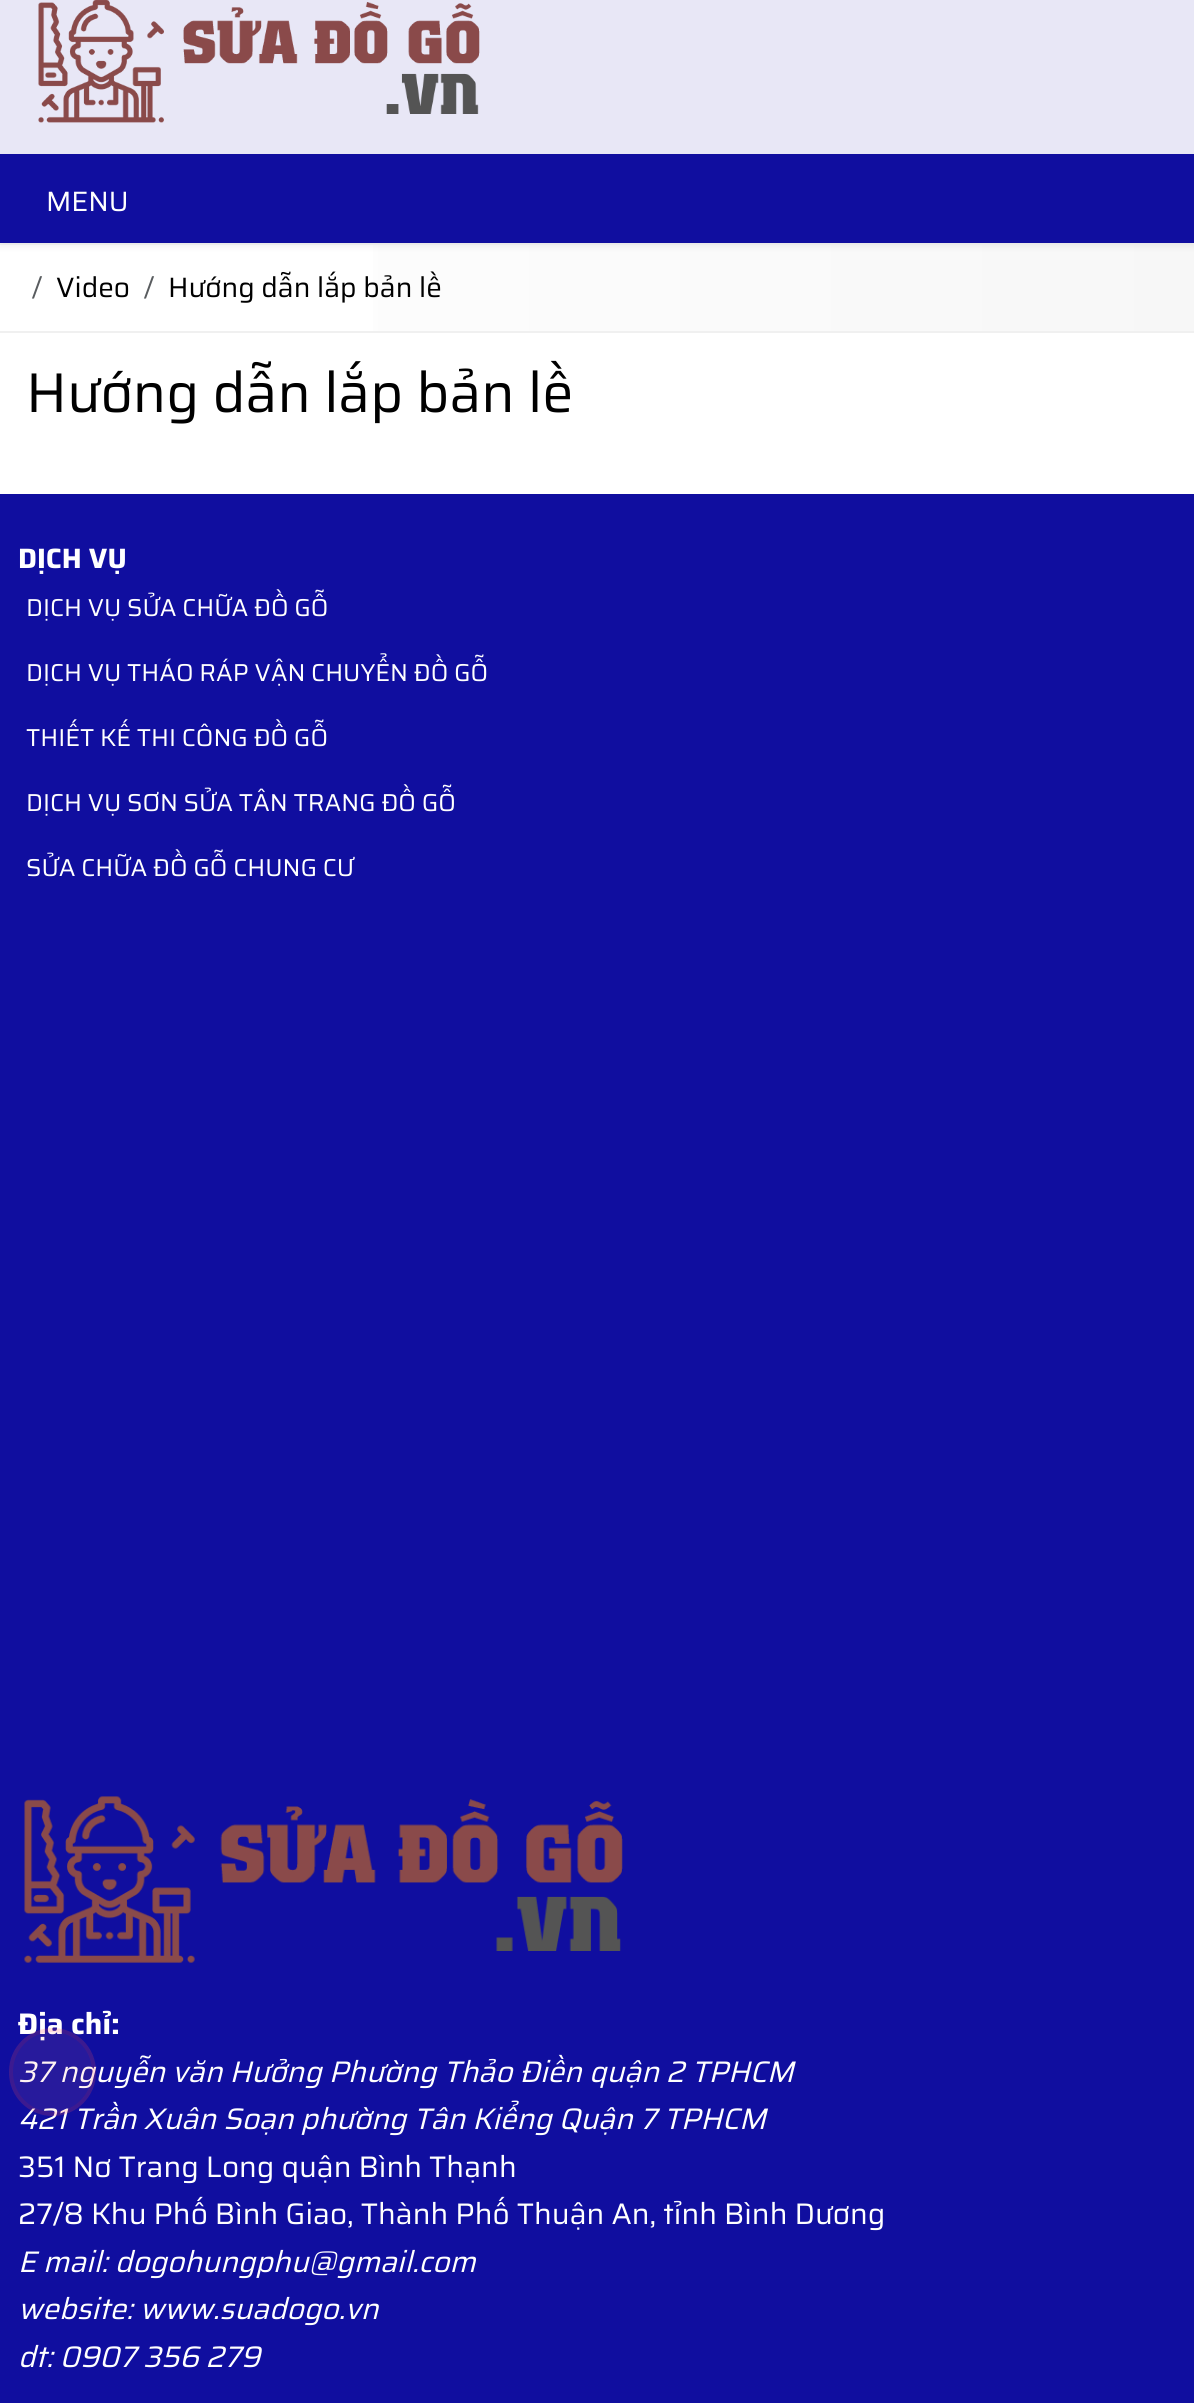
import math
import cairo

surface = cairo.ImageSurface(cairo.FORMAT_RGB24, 1194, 2403)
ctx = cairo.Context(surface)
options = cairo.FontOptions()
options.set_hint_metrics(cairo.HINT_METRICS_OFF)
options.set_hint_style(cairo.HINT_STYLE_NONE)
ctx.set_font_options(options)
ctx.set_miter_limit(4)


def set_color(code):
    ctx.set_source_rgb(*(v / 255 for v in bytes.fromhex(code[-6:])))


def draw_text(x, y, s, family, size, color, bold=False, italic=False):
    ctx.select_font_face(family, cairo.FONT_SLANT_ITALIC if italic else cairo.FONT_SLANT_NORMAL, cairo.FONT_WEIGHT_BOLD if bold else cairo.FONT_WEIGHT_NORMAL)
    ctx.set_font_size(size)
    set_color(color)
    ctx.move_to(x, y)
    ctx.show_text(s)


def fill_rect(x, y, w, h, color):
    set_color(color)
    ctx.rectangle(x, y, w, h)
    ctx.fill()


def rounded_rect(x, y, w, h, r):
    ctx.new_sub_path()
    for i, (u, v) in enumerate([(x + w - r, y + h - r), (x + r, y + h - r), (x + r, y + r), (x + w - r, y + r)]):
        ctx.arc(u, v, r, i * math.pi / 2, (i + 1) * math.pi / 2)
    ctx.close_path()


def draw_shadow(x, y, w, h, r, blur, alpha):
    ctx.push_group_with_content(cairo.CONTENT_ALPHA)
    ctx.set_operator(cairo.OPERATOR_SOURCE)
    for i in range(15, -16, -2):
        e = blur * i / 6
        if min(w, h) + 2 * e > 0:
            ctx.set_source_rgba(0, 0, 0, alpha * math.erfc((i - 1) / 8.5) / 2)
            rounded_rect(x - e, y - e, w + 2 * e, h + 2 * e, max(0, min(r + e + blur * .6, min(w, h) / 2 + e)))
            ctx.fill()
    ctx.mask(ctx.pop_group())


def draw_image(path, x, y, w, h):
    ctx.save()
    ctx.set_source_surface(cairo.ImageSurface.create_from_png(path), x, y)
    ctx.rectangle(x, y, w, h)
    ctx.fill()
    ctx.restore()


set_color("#ffffff")
ctx.paint()
fill_rect(0, 0, 1194, 154, "#e8e7f6")
draw_image("assets/img1.png", 38, 0, 442, 123)
gradient = cairo.LinearGradient(0, 288, 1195, 288)
gradient.add_color_stop_rgba(0, 1, 1, 1, 1)
gradient.add_color_stop_rgba(1, 0.969, 0.969, 0.969, 1)
gradient.add_color_stop_rgba(1, 1, 1, 1, 1)
ctx.set_source(gradient)
ctx.rectangle(373, 245, 821, 86)
ctx.fill()
fill_rect(0, 243, 1194, 2, "#f5f5f5")
set_color("#212529")
draw_shadow(0, 158, 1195, 89, 0, 3.5, 0.07)
fill_rect(0, 154, 1194, 89, "#100e9f")
draw_text(46, 211, "MENU", "Saira", 28, "#ffffff")
fill_rect(0, 331, 1194, 2, "#f0f0f0")
draw_text(32, 297, "/", "Saira", 28, "#595c5f")
draw_text(56, 297, "Video", "Saira", 28, "#000000")
draw_text(144, 297, "/", "Saira", 28, "#595c5f")
draw_text(168, 297, "Hướng dẫn lắp bản lề", "Saira", 28, "#000000")
draw_text(26, 412, "Hướng dẫn lắp bản lề", "Saira", 56, "#000000")
fill_rect(0, 494, 1194, 1909, "#100e9f")
draw_text(18, 568, "DỊCH VỤ", "Saira", 28, "#ffffff", bold=True)
draw_text(26, 616, "DỊCH VỤ SỬA CHỮA ĐỒ GỖ", "Saira", 24.5, "#ffffff")
draw_text(26, 681, "DỊCH VỤ THÁO RÁP VẬN CHUYỂN ĐỒ GỖ", "Saira", 24.5, "#ffffff")
draw_text(26, 746, "THIẾT KẾ THI CÔNG ĐỒ GỖ", "Saira", 24.5, "#ffffff")
draw_text(26, 811, "DỊCH VỤ SƠN SỬA TÂN TRANG ĐỒ GỖ", "Saira", 24.5, "#ffffff")
draw_text(26, 876, "SỬA CHỮA ĐỒ GỖ CHUNG CƯ", "Saira", 24.5, "#ffffff")
draw_image("assets/img2.png", 24, 1796, 599, 167)
draw_text(18, 2034, "Địa chỉ:", "Saira", 29.75, "#ffffff", bold=True)
draw_text(18, 2082, "37 nguyễn văn Hưởng Phường Thảo Điền quận 2 TPHCM", "Saira", 29.75, "#ffffff", italic=True)
draw_text(18, 2129, "421 Trần Xuân Soạn phường Tân Kiểng Quận 7 TPHCM", "Saira", 29.75, "#ffffff", italic=True)
draw_text(18, 2177, "351 Nơ Trang Long quận Bình Thạnh", "Saira", 29.75, "#ffffff")
draw_text(18, 2224, "27/8 Khu Phố Bình Giao, Thành Phố Thuận An, tỉnh Bình Dương", "Saira", 29.75, "#ffffff")
draw_text(18, 2272, "E mail: dogohungphu@gmail.com", "Saira", 29.75, "#ffffff", italic=True)
draw_text(18, 2319, "website: www.suadogo.vn", "Saira", 29.75, "#ffffff", italic=True)
draw_text(18, 2367, "dt: 0907 356 279", "Saira", 29.75, "#ffffff", italic=True)
ctx.set_source_rgba(1, 0.514, 0.514, 0.1)
rounded_rect(9, 2028, 87, 88, 43.5)
ctx.fill()
rounded_rect(11, 2030, 83, 84, 41.5)
ctx.set_source_rgba(0.988, 0.125, 0.125, 0.1)
ctx.set_line_width(4)
ctx.stroke()
surface.write_to_png("output.png")
